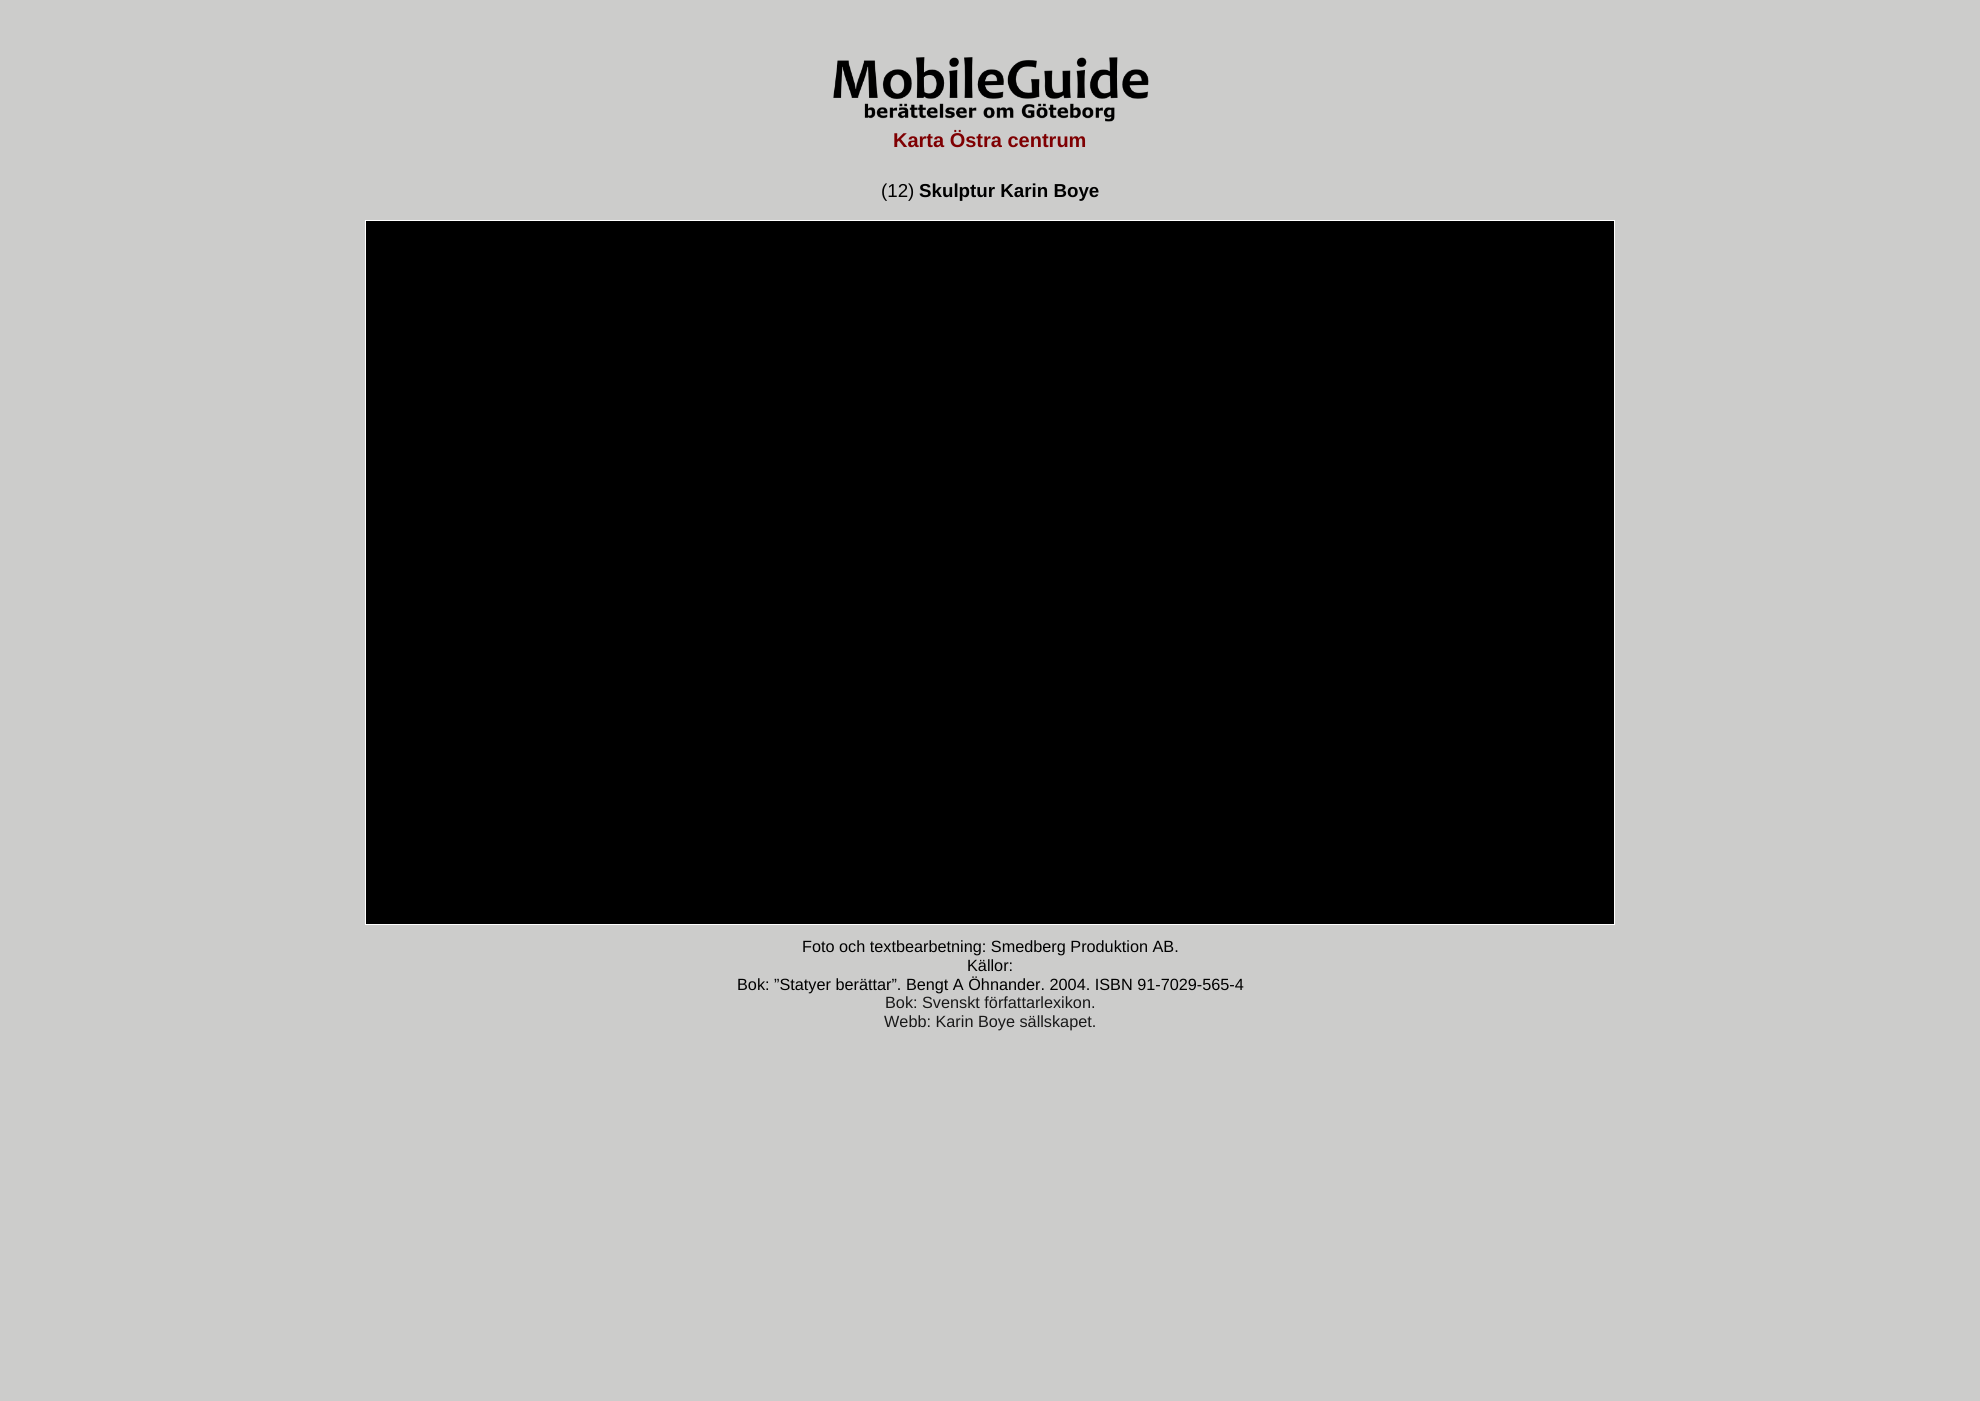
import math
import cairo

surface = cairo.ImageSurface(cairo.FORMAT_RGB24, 1980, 1401)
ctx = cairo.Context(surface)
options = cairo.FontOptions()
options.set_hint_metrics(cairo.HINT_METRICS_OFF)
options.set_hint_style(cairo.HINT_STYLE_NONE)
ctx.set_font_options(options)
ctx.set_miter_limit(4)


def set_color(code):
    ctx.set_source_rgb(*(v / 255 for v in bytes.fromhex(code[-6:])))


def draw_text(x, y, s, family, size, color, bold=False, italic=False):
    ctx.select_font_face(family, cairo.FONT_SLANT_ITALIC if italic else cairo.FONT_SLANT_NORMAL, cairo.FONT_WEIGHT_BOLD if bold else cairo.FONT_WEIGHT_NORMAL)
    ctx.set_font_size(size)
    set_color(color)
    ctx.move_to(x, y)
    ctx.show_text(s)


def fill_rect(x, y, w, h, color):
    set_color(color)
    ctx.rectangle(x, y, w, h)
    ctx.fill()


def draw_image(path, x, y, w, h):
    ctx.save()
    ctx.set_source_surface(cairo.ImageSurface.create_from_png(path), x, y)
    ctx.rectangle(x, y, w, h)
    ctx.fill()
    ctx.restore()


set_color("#cccccb")
ctx.paint()
draw_image("assets/img1.png", 833, 57, 316, 65)
draw_text(893, 147, "Karta Östra centrum", "Liberation Sans", 20, "#7f0002", bold=True)
draw_text(881, 197, "(12)", "Liberation Sans", 18.75, "#000000")
draw_text(919, 197, "Skulptur Karin Boye", "Liberation Sans", 18.75, "#000000", bold=True)
ctx.rectangle(365.5, 220.5, 1249, 704)
set_color("#ffffff")
ctx.set_line_width(1)
ctx.stroke()
fill_rect(366, 221, 1248, 703, "#000000")
draw_text(802, 952, "Foto och textbearbetning: Smedberg Produktion AB.", "Liberation Sans", 16.25, "#000000")
draw_text(967, 971, "Källor:", "Liberation Sans", 16.25, "#000000")
draw_text(737, 990, "Bok: ”Statyer berättar”. Bengt A Öhnander. 2004. ISBN 91-7029-565-4", "Liberation Sans", 16.25, "#000000")
draw_text(885, 1008, "Bok: Svenskt författarlexikon.", "Liberation Sans", 16.25, "#191919")
draw_text(884, 1027, "Webb: Karin Boye sällskapet.", "Liberation Sans", 16.25, "#191919")
surface.write_to_png("output.png")
